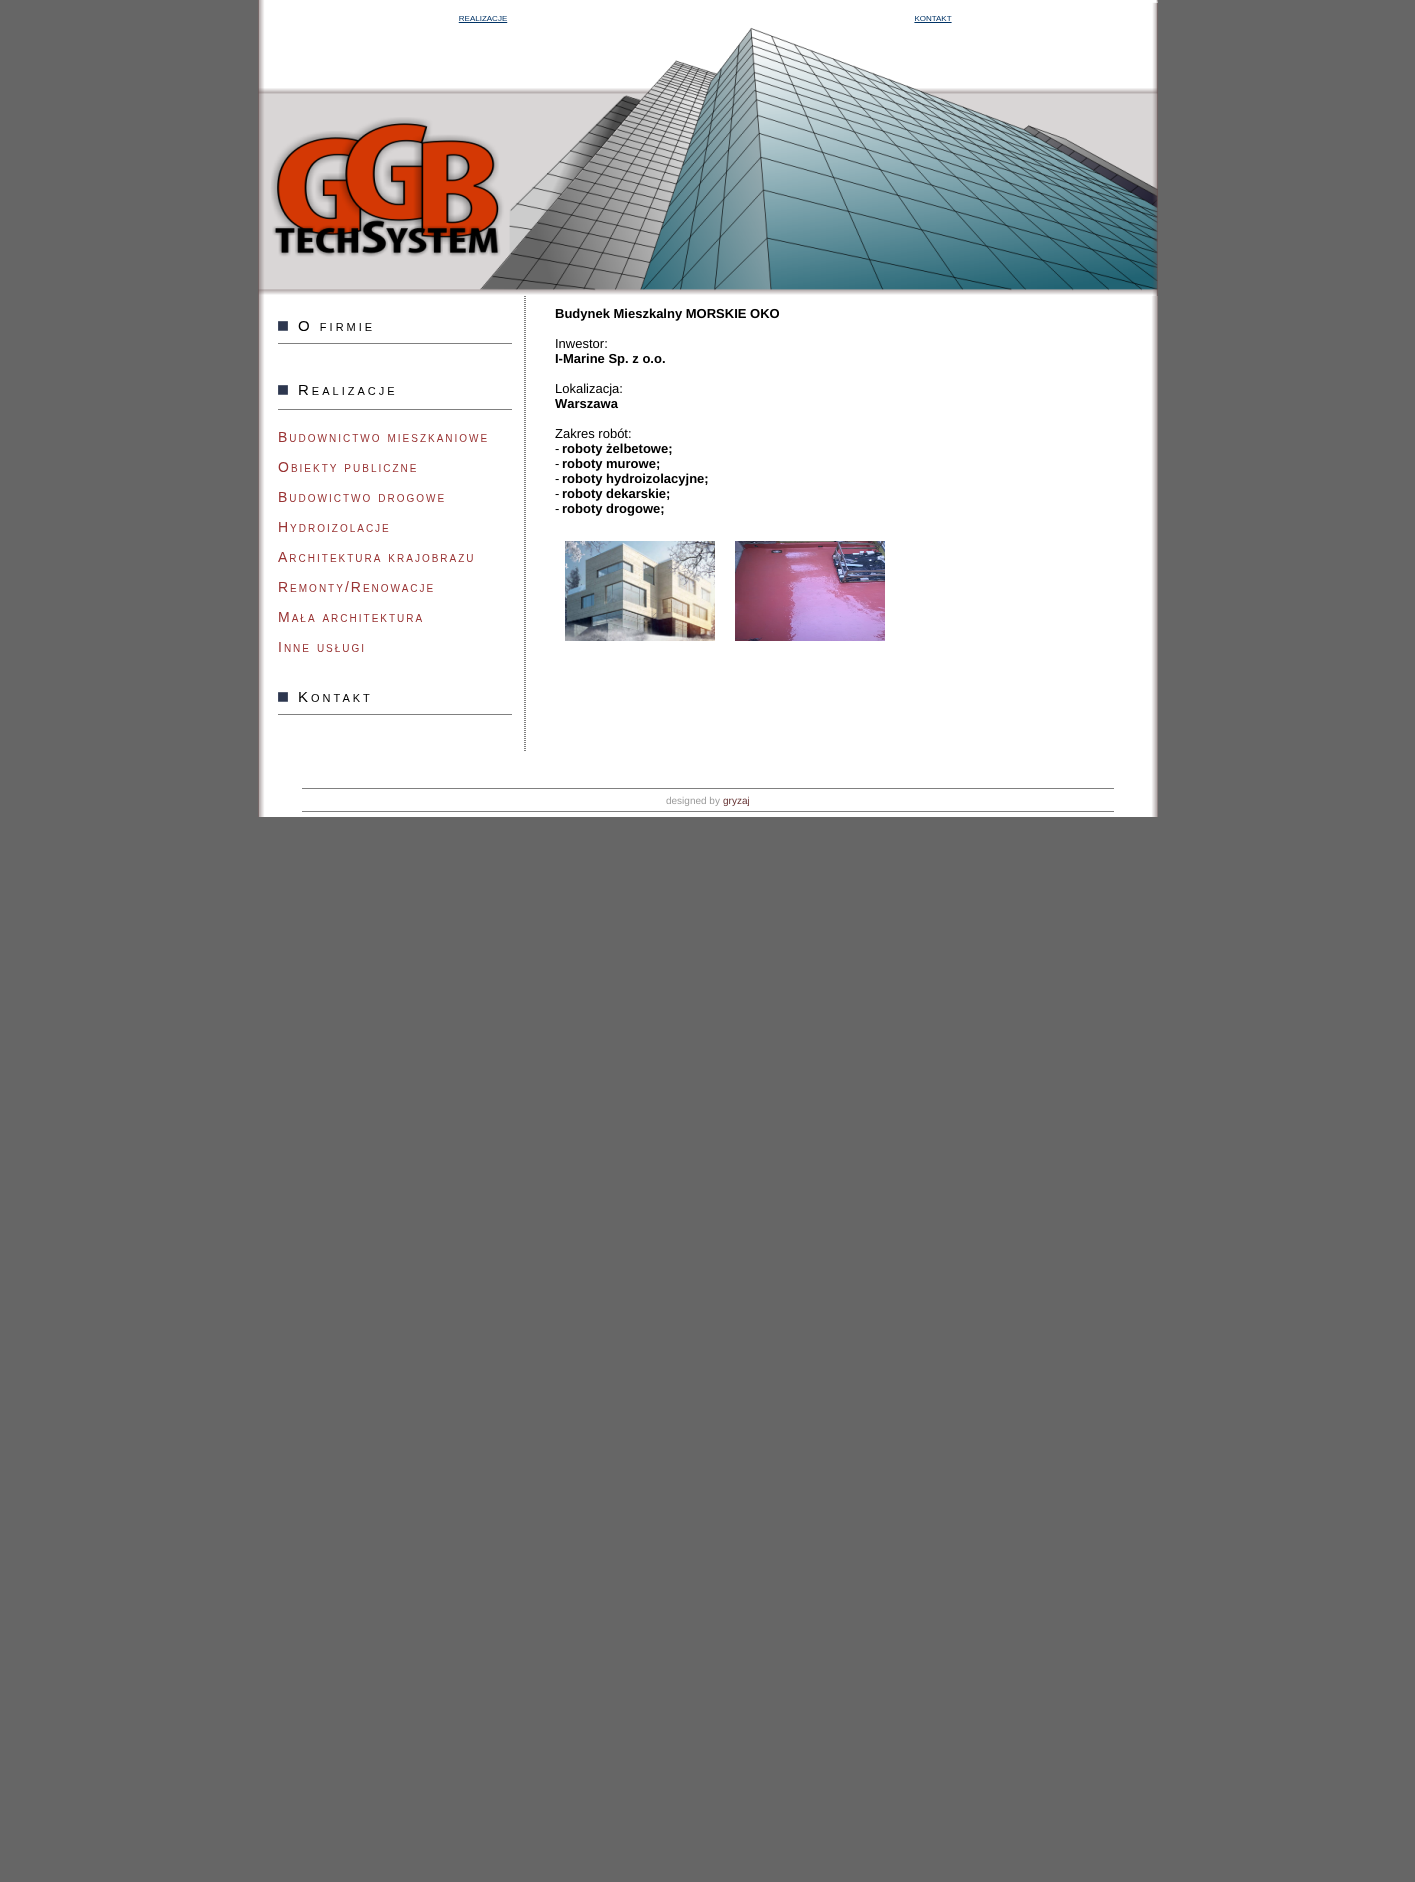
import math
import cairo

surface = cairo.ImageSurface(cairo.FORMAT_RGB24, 1415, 1882)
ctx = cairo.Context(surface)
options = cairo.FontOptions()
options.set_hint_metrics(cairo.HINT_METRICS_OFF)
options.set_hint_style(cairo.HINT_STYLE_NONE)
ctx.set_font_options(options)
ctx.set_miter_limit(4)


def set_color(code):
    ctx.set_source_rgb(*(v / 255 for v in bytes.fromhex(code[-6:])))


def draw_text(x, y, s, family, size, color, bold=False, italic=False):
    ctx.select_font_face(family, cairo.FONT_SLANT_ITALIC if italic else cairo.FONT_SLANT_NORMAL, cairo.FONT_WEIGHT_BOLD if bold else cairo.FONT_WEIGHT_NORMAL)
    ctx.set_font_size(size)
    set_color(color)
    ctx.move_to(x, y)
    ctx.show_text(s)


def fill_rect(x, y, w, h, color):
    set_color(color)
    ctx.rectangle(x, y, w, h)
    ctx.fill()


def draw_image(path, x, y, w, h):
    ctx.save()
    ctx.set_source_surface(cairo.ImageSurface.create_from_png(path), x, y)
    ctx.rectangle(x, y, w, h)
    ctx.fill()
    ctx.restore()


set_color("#666666")
ctx.paint()
draw_image("assets/img1.png", 258, 296, 900, 521)
draw_image("assets/img2.png", 258, 0, 900, 296)
draw_image("assets/img3.png", 278, 321, 234, 394)
draw_image("assets/img4.png", 524, 296, 2, 455)
draw_text(555, 318, "Budynek Mieszkalny MORSKIE OKO", "Liberation Sans", 13, "#000000", bold=True)
draw_text(555, 348, "Inwestor:", "Liberation Sans", 13, "#000000")
draw_text(555, 363, "I-Marine Sp. z o.o.", "Liberation Sans", 13, "#000000", bold=True)
draw_text(555, 393, "Lokalizacja:", "Liberation Sans", 13, "#000000")
draw_text(555, 408, "Warszawa", "Liberation Sans", 13, "#000000", bold=True)
draw_text(555, 438, "Zakres robót:", "Liberation Sans", 13, "#000000")
draw_text(555, 453, "-", "Liberation Sans", 13, "#000000")
draw_text(562, 453, "roboty żelbetowe;", "Liberation Sans", 13, "#000000", bold=True)
draw_text(555, 468, "-", "Liberation Sans", 13, "#000000")
draw_text(562, 468, "roboty murowe;", "Liberation Sans", 13, "#000000", bold=True)
draw_text(555, 483, "-", "Liberation Sans", 13, "#000000")
draw_text(562, 483, "roboty hydroizolacyjne;", "Liberation Sans", 13, "#000000", bold=True)
draw_text(555, 498, "-", "Liberation Sans", 13, "#000000")
draw_text(562, 498, "roboty dekarskie;", "Liberation Sans", 13, "#000000", bold=True)
draw_text(555, 513, "-", "Liberation Sans", 13, "#000000")
draw_text(562, 513, "roboty drogowe;", "Liberation Sans", 13, "#000000", bold=True)
draw_image("assets/img5.png", 565, 541, 150, 100)
draw_image("assets/img6.png", 735, 541, 150, 100)
fill_rect(302, 788, 812, 1, "#808080")
draw_text(666, 804, "designed by", "Liberation Sans", 10, "#999999")
draw_text(723, 804, "gryzaj", "Liberation Sans", 10, "#663333")
fill_rect(302, 811, 812, 1, "#808080")
surface.write_to_png("output.png")
